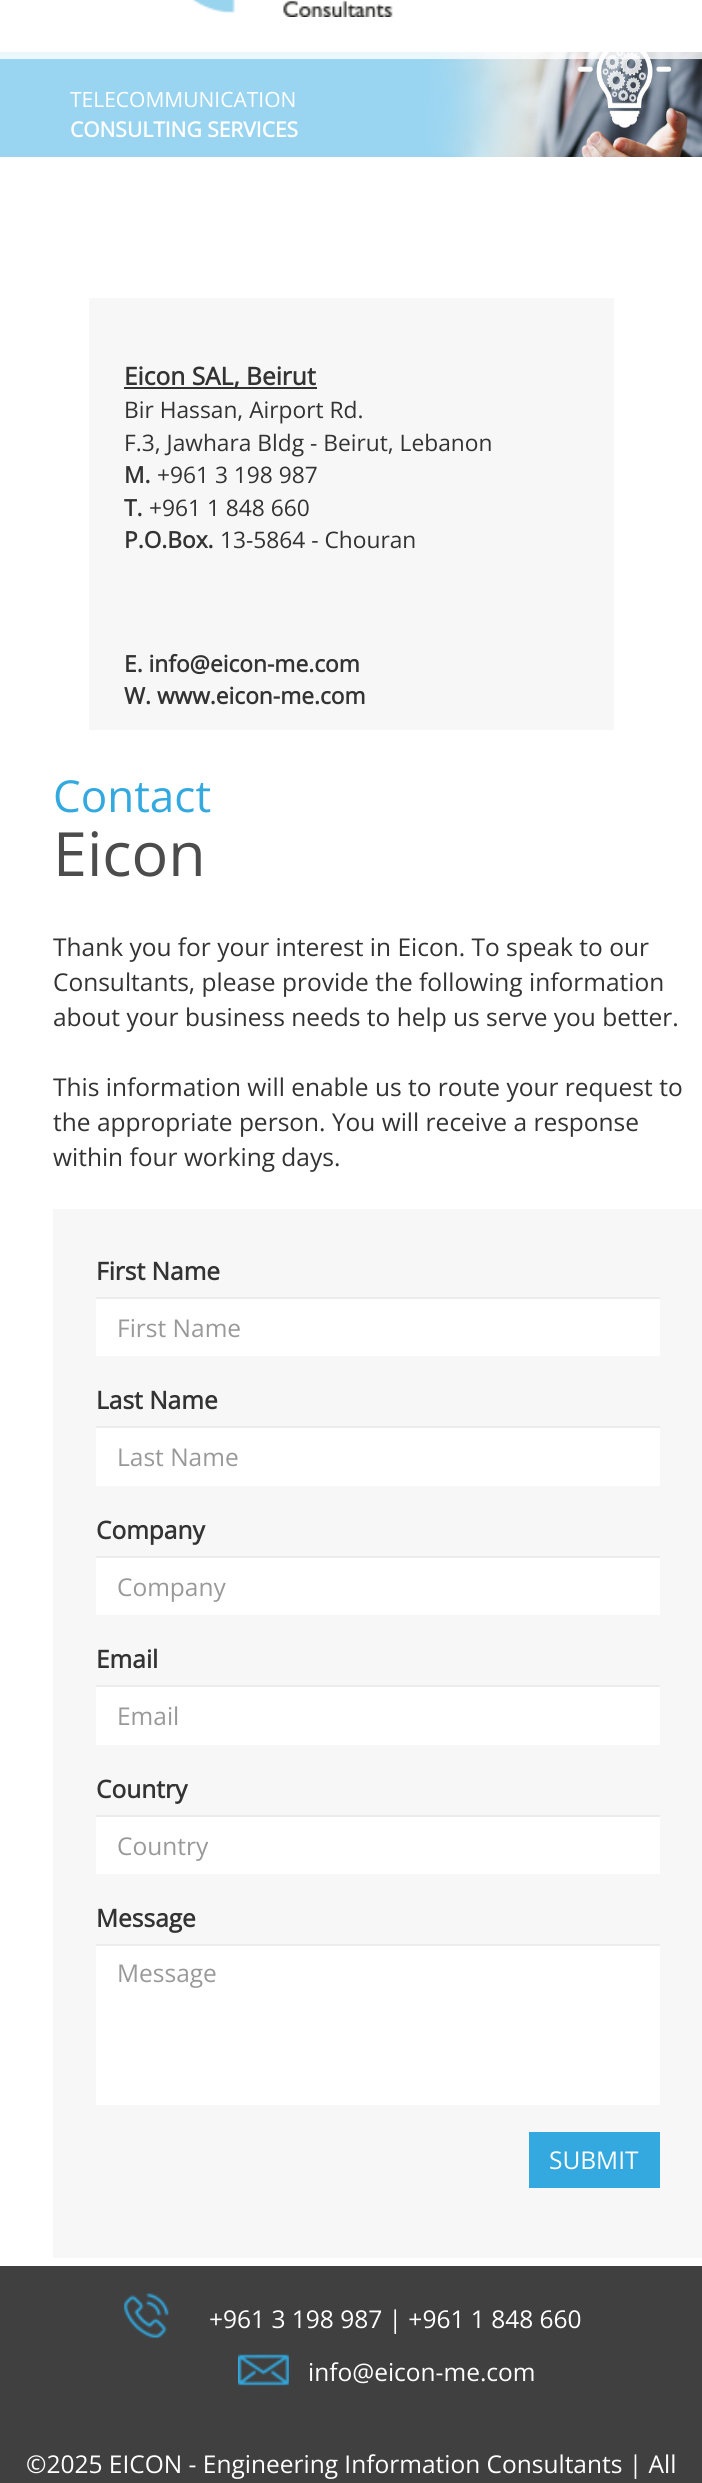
import math
import cairo

surface = cairo.ImageSurface(cairo.FORMAT_RGB24, 702, 2483)
ctx = cairo.Context(surface)
options = cairo.FontOptions()
options.set_hint_metrics(cairo.HINT_METRICS_OFF)
options.set_hint_style(cairo.HINT_STYLE_NONE)
ctx.set_font_options(options)
ctx.set_miter_limit(4)


def set_color(code):
    ctx.set_source_rgb(*(v / 255 for v in bytes.fromhex(code[-6:])))


def draw_text(x, y, s, family, size, color, bold=False, italic=False):
    ctx.select_font_face(family, cairo.FONT_SLANT_ITALIC if italic else cairo.FONT_SLANT_NORMAL, cairo.FONT_WEIGHT_BOLD if bold else cairo.FONT_WEIGHT_NORMAL)
    ctx.set_font_size(size)
    set_color(color)
    ctx.move_to(x, y)
    ctx.show_text(s)


def fill_rect(x, y, w, h, color):
    set_color(color)
    ctx.rectangle(x, y, w, h)
    ctx.fill()


def draw_image(path, x, y, w, h):
    ctx.save()
    ctx.set_source_surface(cairo.ImageSurface.create_from_png(path), x, y)
    ctx.rectangle(x, y, w, h)
    ctx.fill()
    ctx.restore()


set_color("#ffffff")
ctx.paint()
draw_image("assets/img1.png", 192, 0, 201, 17)
draw_image("assets/img2.png", 0, 52, 702, 105)
draw_text(70, 107, "TELECOMMUNICATION", "Open Sans", 21, "#ffffff")
draw_text(70, 137, "CONSULTING SERVICES", "Open Sans", 21, "#ffffff", bold=True)
fill_rect(89, 298, 525, 432, "#f7f7f7")
fill_rect(124, 387, 193, 2, "#333333")
draw_text(124, 385, "Eicon SAL, Beirut", "Open Sans", 24.5, "#333333", bold=True)
draw_text(124, 418, "Bir Hassan, Airport Rd.", "Open Sans", 22.75, "#333333")
draw_text(124, 451, "F.3, Jawhara Bldg - Beirut, Lebanon", "Open Sans", 22.75, "#333333")
draw_text(124, 483, "M.", "Open Sans", 22.75, "#333333", bold=True)
draw_text(157, 483, "+961 3 198 987", "Open Sans", 22.75, "#333333")
draw_text(124, 516, "T.", "Open Sans", 22.75, "#333333", bold=True)
draw_text(149, 516, "+961 1 848 660", "Open Sans", 22.75, "#333333")
draw_text(124, 548, "P.O.Box.", "Open Sans", 22.75, "#333333", bold=True)
draw_text(220, 548, "13-5864 - Chouran", "Open Sans", 22.75, "#333333")
draw_text(124, 672, "E. info@eicon-me.com", "Open Sans", 22.75, "#333333", bold=True)
draw_text(124, 704, "W. www.eicon-me.com", "Open Sans", 22.75, "#333333", bold=True)
draw_text(53, 812, "Contact", "Open Sans", 44, "#33a9e0")
draw_text(53, 876, "Eicon", "Open Sans", 61, "#4c4c4c")
draw_text(53, 956, "Thank you for your interest in Eicon. To speak to our", "Open Sans", 24.5, "#333333")
draw_text(53, 991, "Consultants, please provide the following information", "Open Sans", 24.5, "#333333")
draw_text(53, 1026, "about your business needs to help us serve you better.", "Open Sans", 24.5, "#333333")
draw_text(53, 1096, "This information will enable us to route your request to", "Open Sans", 24.5, "#333333")
draw_text(53, 1131, "the appropriate person. You will receive a response", "Open Sans", 24.5, "#333333")
draw_text(53, 1166, "within four working days.", "Open Sans", 24.5, "#333333")
fill_rect(53, 1209, 649, 1049, "#f7f7f7")
draw_text(96, 1280, "First Name", "Open Sans", 24.5, "#333333", bold=True)
fill_rect(96, 1299, 564, 57, "#ffffff")
fill_rect(96, 1297, 564, 2, "#ececec")
draw_text(117, 1337, "First Name", "Open Sans", 24.5, "#999999")
draw_text(96, 1409, "Last Name", "Open Sans", 24.5, "#333333", bold=True)
fill_rect(96, 1428, 564, 58, "#ffffff")
fill_rect(96, 1426, 564, 2, "#ececec")
draw_text(117, 1466, "Last Name", "Open Sans", 24.5, "#999999")
draw_text(96, 1539, "Company", "Open Sans", 24.5, "#333333", bold=True)
fill_rect(96, 1558, 564, 57, "#ffffff")
fill_rect(96, 1556, 564, 2, "#ececec")
draw_text(117, 1596, "Company", "Open Sans", 24.5, "#999999")
draw_text(96, 1668, "Email", "Open Sans", 24.5, "#333333", bold=True)
fill_rect(96, 1687, 564, 58, "#ffffff")
fill_rect(96, 1685, 564, 2, "#ececec")
draw_text(117, 1725, "Email", "Open Sans", 24.5, "#999999")
draw_text(96, 1798, "Country", "Open Sans", 24.5, "#333333", bold=True)
fill_rect(96, 1817, 564, 57, "#ffffff")
fill_rect(96, 1815, 564, 2, "#ececec")
draw_text(117, 1855, "Country", "Open Sans", 24.5, "#999999")
draw_text(96, 1927, "Message", "Open Sans", 24.5, "#333333", bold=True)
fill_rect(96, 1946, 564, 159, "#ffffff")
fill_rect(96, 1944, 564, 2, "#ececec")
draw_text(117, 1982, "Message", "Open Sans", 24.5, "#999999")
fill_rect(529, 2132, 131, 56, "#33a9e0")
draw_text(549, 2169, "SUBMIT", "Open Sans", 24.5, "#ffffff")
fill_rect(0, 2266, 702, 217, "#404040")
draw_image("assets/img3.png", 123, 2293, 46, 45)
draw_text(209, 2328, "+961 3 198 987 | +961 1 848 660", "Open Sans", 24.5, "#ffffff")
draw_image("assets/img4.png", 238, 2354, 51, 32)
draw_text(308, 2381, "info@eicon-me.com", "Open Sans", 24.5, "#ffffff")
draw_text(26, 2473, "©2025 EICON - Engineering Information Consultants | All", "Open Sans", 24.5, "#ffffff")
surface.write_to_png("output.png")
